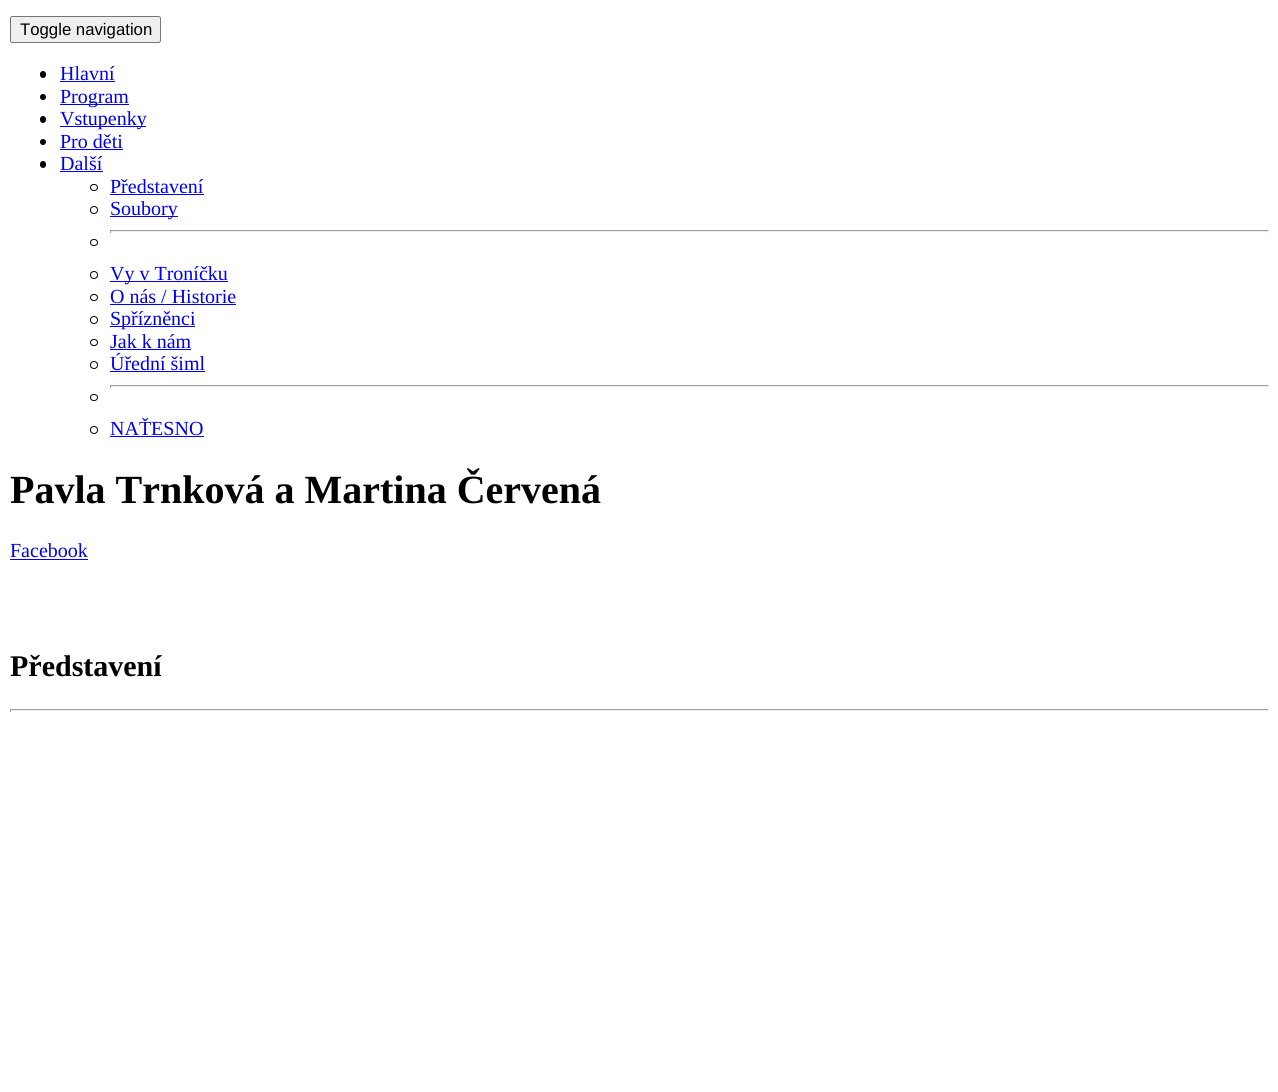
import math
import cairo

surface = cairo.ImageSurface(cairo.FORMAT_RGB24, 1278, 1092)
ctx = cairo.Context(surface)
options = cairo.FontOptions()
options.set_hint_metrics(cairo.HINT_METRICS_OFF)
options.set_hint_style(cairo.HINT_STYLE_NONE)
ctx.set_font_options(options)
ctx.set_miter_limit(4)


def set_color(code):
    ctx.set_source_rgb(*(v / 255 for v in bytes.fromhex(code[-6:])))


def draw_text(x, y, s, family, size, color, bold=False, italic=False):
    ctx.select_font_face(family, cairo.FONT_SLANT_ITALIC if italic else cairo.FONT_SLANT_NORMAL, cairo.FONT_WEIGHT_BOLD if bold else cairo.FONT_WEIGHT_NORMAL)
    ctx.set_font_size(size)
    set_color(color)
    ctx.move_to(x, y)
    ctx.show_text(s)


def fill_rect(x, y, w, h, color):
    set_color(color)
    ctx.rectangle(x, y, w, h)
    ctx.fill()


def rounded_rect(x, y, w, h, r):
    ctx.new_sub_path()
    for i, (u, v) in enumerate([(x + w - r, y + h - r), (x + r, y + h - r), (x + r, y + r), (x + w - r, y + r)]):
        ctx.arc(u, v, r, i * math.pi / 2, (i + 1) * math.pi / 2)
    ctx.close_path()


set_color("#ffffff")
ctx.paint()
set_color("#efefef")
rounded_rect(10.5, 16.5, 150, 26, 2)
ctx.fill_preserve()
set_color("#767676")
ctx.set_line_width(1)
ctx.stroke()
draw_text(20, 35, "Toggle navigation", "Liberation Sans", 16.75, "#000000")
rounded_rect(40, 71, 6, 7, 3)
ctx.fill()
draw_text(60, 80, "Hlavní", "Liberation Serif", 20, "#0000ee")
fill_rect(60, 81, 55, 1, "#0000ee")
set_color("#000000")
ctx.new_path()
ctx.arc(43, 97, 3, 0, 2 * math.pi)
ctx.fill()
fill_rect(60, 104, 69, 1, "#0000ee")
draw_text(60, 103, "Program", "Liberation Serif", 20, "#0000ee")
set_color("#000000")
rounded_rect(40, 116, 6, 7, 3)
ctx.fill()
fill_rect(60, 126, 86, 1, "#0000ee")
draw_text(60, 125, "Vstupenky", "Liberation Serif", 20, "#0000ee")
set_color("#000000")
ctx.new_path()
ctx.arc(43, 142, 3, 0, 2 * math.pi)
ctx.fill()
draw_text(60, 148, "Pro děti", "Liberation Serif", 20, "#0000ee")
fill_rect(60, 149, 63, 1, "#0000ee")
set_color("#000000")
rounded_rect(40, 161, 6, 7, 3)
ctx.fill()
draw_text(60, 170, "Další", "Liberation Serif", 20, "#0000ee")
fill_rect(60, 171, 43, 1, "#0000ee")
rounded_rect(90.5, 184.5, 7, 6, 3)
set_color("#000000")
ctx.stroke()
draw_text(110, 193, "Představení", "Liberation Serif", 20, "#0000ee")
fill_rect(110, 194, 94, 1, "#0000ee")
ctx.new_path()
ctx.arc(94, 210, 3.5, 0, 2 * math.pi)
set_color("#000000")
ctx.stroke()
fill_rect(110, 216, 68, 1, "#0000ee")
draw_text(110, 215, "Soubory", "Liberation Serif", 20, "#0000ee")
fill_rect(110, 230, 1159, 1, "#9f9f9f")
fill_rect(1268, 230, 1, 3, "#eeeeee")
fill_rect(110, 231, 1159, 1, "#eeeeee")
fill_rect(110, 230, 1, 3, "#9f9f9f")
rounded_rect(90.5, 239.5, 7, 6, 3)
set_color("#000000")
ctx.stroke()
ctx.arc(94, 275, 3.5, 0, 2 * math.pi)
ctx.stroke()
fill_rect(110, 281, 118, 1, "#0000ee")
draw_text(110, 280, "Vy v Troníčku", "Liberation Serif", 20, "#0000ee")
rounded_rect(90.5, 294.5, 7, 6, 3)
set_color("#000000")
ctx.stroke()
draw_text(110, 303, "O nás / Historie", "Liberation Serif", 20, "#0000ee")
fill_rect(110, 304, 126, 1, "#0000ee")
ctx.new_path()
ctx.arc(94, 320, 3.5, 0, 2 * math.pi)
set_color("#000000")
ctx.stroke()
fill_rect(110, 326, 85, 1, "#0000ee")
draw_text(110, 325, "Spřízněnci", "Liberation Serif", 20, "#0000ee")
rounded_rect(90.5, 339.5, 7, 6, 3)
set_color("#000000")
ctx.stroke()
draw_text(110, 348, "Jak k nám", "Liberation Serif", 20, "#0000ee")
fill_rect(110, 349, 81, 1, "#0000ee")
ctx.new_path()
ctx.arc(94, 365, 3.5, 0, 2 * math.pi)
set_color("#000000")
ctx.stroke()
draw_text(110, 370, "Úřední šiml", "Liberation Serif", 20, "#0000ee")
fill_rect(110, 371, 95, 1, "#0000ee")
fill_rect(110, 385, 1159, 1, "#9f9f9f")
fill_rect(1268, 385, 1, 3, "#eeeeee")
fill_rect(110, 386, 1159, 1, "#eeeeee")
fill_rect(110, 385, 1, 3, "#9f9f9f")
rounded_rect(90.5, 394.5, 7, 6, 3)
set_color("#000000")
ctx.stroke()
ctx.arc(94, 430, 3.5, 0, 2 * math.pi)
ctx.stroke()
draw_text(110, 435, "NAŤESNO", "Liberation Serif", 20, "#0000ee")
fill_rect(110, 436, 94, 1, "#0000ee")
draw_text(10, 503, "Pavla Trnková a Martina Červená", "Liberation Serif", 40, "#000000", bold=True)
draw_text(10, 557, "Facebook", "Liberation Serif", 20, "#0000ee")
fill_rect(10, 559, 78, 1, "#0000ee")
draw_text(10, 676, "Představení", "Liberation Serif", 30, "#000000", bold=True)
fill_rect(10, 709, 1259, 1, "#9f9f9f")
fill_rect(1268, 709, 1, 3, "#eeeeee")
fill_rect(10, 710, 1259, 1, "#eeeeee")
fill_rect(10, 709, 1, 3, "#9f9f9f")
surface.write_to_png("output.png")
